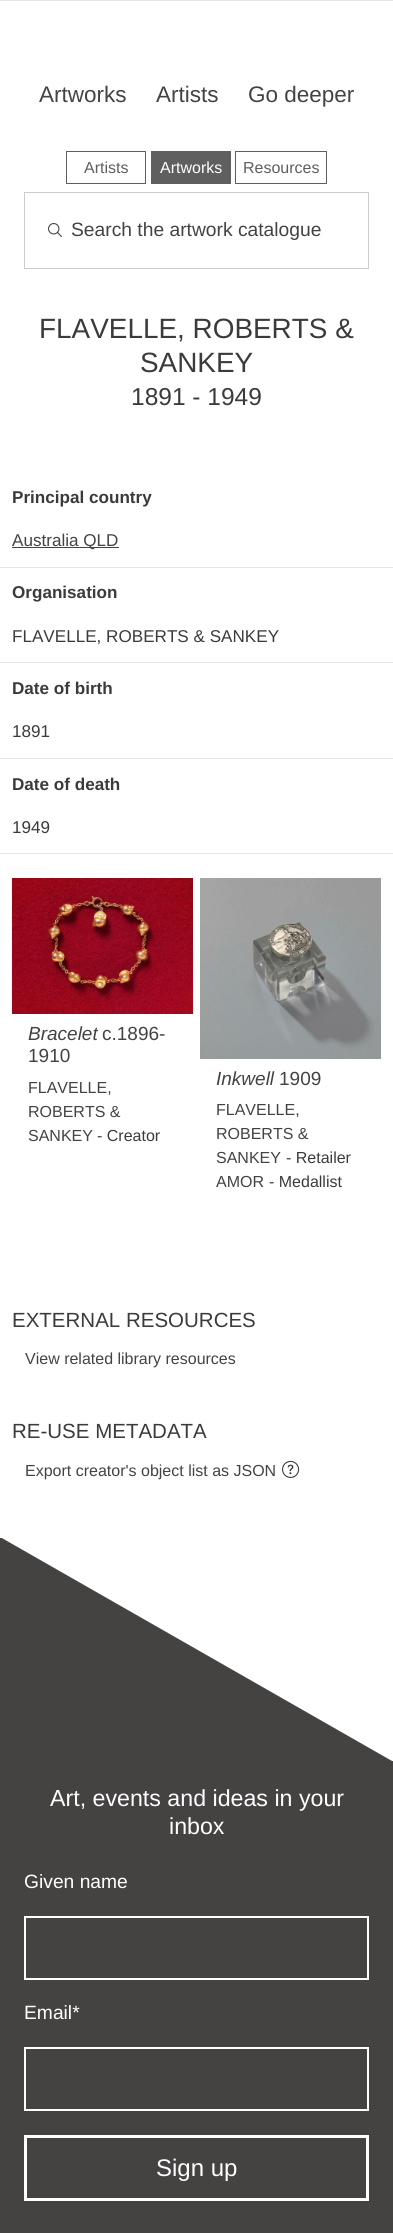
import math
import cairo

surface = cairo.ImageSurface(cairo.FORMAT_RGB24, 393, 2233)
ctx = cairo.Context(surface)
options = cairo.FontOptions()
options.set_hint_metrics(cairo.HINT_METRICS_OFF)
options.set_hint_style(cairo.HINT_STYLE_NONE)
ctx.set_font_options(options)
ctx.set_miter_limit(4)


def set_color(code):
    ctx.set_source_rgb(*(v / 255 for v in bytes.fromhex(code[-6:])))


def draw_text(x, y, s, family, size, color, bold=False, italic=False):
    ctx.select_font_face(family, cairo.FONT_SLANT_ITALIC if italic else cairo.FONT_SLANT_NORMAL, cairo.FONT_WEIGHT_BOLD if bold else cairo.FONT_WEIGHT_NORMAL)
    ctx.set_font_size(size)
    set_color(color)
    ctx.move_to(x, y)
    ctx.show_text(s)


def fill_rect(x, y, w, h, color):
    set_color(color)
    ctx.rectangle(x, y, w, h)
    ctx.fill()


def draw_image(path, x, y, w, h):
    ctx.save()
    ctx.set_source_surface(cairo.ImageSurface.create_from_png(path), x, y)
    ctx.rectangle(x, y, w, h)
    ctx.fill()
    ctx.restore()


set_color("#ffffff")
ctx.paint()
fill_rect(0, 0, 393, 1, "#e5e5e5")
draw_text(39, 102, "Artworks", "Liberation Sans", 22.5, "#454242")
draw_text(156, 102, "Artists", "Liberation Sans", 22.5, "#454242")
draw_text(248, 102, "Go deeper", "Liberation Sans", 22.5, "#454242")
ctx.rectangle(66.5, 151.5, 79, 32)
set_color("#5f5f5f")
ctx.set_line_width(1)
ctx.stroke()
draw_text(84, 173, "Artists", "Liberation Sans", 16, "#5f5f5f")
fill_rect(151, 151, 80, 33, "#5f5f5f")
draw_text(160, 173, "Artworks", "Liberation Sans", 16, "#ffffff")
ctx.rectangle(235.5, 151.5, 91, 32)
set_color("#5f5f5f")
ctx.stroke()
draw_text(243, 173, "Resources", "Liberation Sans", 16, "#5f5f5f")
ctx.rectangle(24.5, 192.5, 344, 76)
set_color("#cccccc")
ctx.stroke()
draw_image("assets/img1.png", 48, 223, 14, 14)
draw_text(71, 236, "Search the artwork catalogue", "Liberation Sans", 19.25, "#454242")
draw_text(39, 338, "FLAVELLE, ROBERTS &", "Liberation Sans", 27.9, "#3b3b3b")
draw_text(140, 372, "SANKEY", "Liberation Sans", 27.9, "#3b3b3b")
draw_text(131, 405, "1891 - 1949", "Liberation Sans", 24.5, "#3b3b3b")
draw_text(12, 503, "Principal country", "Liberation Sans", 17.1, "#3b3b3b", bold=True)
fill_rect(0, 567, 393, 1, "#e5e5e5")
fill_rect(12, 547, 107, 1, "#454242")
draw_text(12, 546, "Australia QLD", "Liberation Sans", 17.1, "#454242")
draw_text(12, 598, "Organisation", "Liberation Sans", 17.1, "#3b3b3b", bold=True)
fill_rect(0, 662, 393, 1, "#e5e5e5")
draw_text(12, 642, "FLAVELLE, ROBERTS & SANKEY", "Liberation Sans", 17.1, "#3b3b3b")
draw_text(12, 694, "Date of birth", "Liberation Sans", 17.1, "#3b3b3b", bold=True)
fill_rect(0, 758, 393, 1, "#e5e5e5")
draw_text(12, 737, "1891", "Liberation Sans", 17.1, "#3b3b3b")
draw_text(12, 790, "Date of death", "Liberation Sans", 17.1, "#3b3b3b", bold=True)
fill_rect(0, 853, 393, 1, "#e5e5e5")
draw_text(12, 833, "1949", "Liberation Sans", 17.1, "#3b3b3b")
draw_image("assets/img2.png", 12, 878, 181, 136)
draw_text(28, 1040, "Bracelet", "Liberation Sans", 19, "#454242", italic=True)
draw_text(102, 1040, "c.1896-", "Liberation Sans", 19, "#454242")
draw_text(28, 1062, "1910", "Liberation Sans", 19, "#454242")
draw_text(28, 1093, "FLAVELLE,", "Liberation Sans", 16, "#454242")
draw_text(28, 1117, "ROBERTS &", "Liberation Sans", 16, "#454242")
draw_text(28, 1141, "SANKEY", "Liberation Sans", 16, "#454242")
draw_text(97, 1141, "- Creator", "Liberation Sans", 16, "#3b3b3b")
draw_image("assets/img3.png", 200, 878, 181, 181)
draw_text(216, 1085, "Inkwell", "Liberation Sans", 19, "#454242", italic=True)
draw_text(279, 1085, "1909", "Liberation Sans", 19, "#454242")
draw_text(216, 1115, "FLAVELLE,", "Liberation Sans", 16, "#454242")
draw_text(216, 1139, "ROBERTS &", "Liberation Sans", 16, "#454242")
draw_text(216, 1163, "SANKEY", "Liberation Sans", 16, "#454242")
draw_text(286, 1163, "- Retailer", "Liberation Sans", 16, "#3b3b3b")
draw_text(216, 1187, "AMOR", "Liberation Sans", 16, "#454242")
draw_text(269, 1187, "- Medallist", "Liberation Sans", 16, "#3b3b3b")
draw_text(12, 1327, "EXTERNAL RESOURCES", "Liberation Sans", 20.5, "#3b3b3b")
draw_text(25, 1364, "View related library resources", "Liberation Sans", 16, "#454242")
draw_text(12, 1438, "RE-USE METADATA", "Liberation Sans", 20.5, "#3b3b3b")
draw_text(25, 1476, "Export creator's object list as JSON", "Liberation Sans", 16, "#454242")
draw_image("assets/img4.png", 282, 1460, 18, 18)
fill_rect(0, 1538, 393, 695, "#454242")
set_color("#ffffff")
ctx.new_path()
ctx.move_to(0, 1537)
ctx.line_to(393, 1537)
ctx.line_to(393, 1761)
ctx.line_to(392, 1761)
ctx.close_path()
ctx.fill()
draw_text(50, 1806, "Art, events and ideas in your", "Liberation Sans", 23.2, "#ffffff")
draw_text(169, 1834, "inbox", "Liberation Sans", 23.2, "#ffffff")
draw_text(24, 1888, "Given name", "Liberation Sans", 19.25, "#ffffff")
ctx.rectangle(25, 1917, 343, 62)
ctx.set_line_width(2)
ctx.stroke()
draw_text(24, 2019, "Email*", "Liberation Sans", 19.25, "#ffffff")
ctx.rectangle(25, 2048, 343, 62)
ctx.stroke()
ctx.rectangle(25.5, 2136.5, 342, 63)
ctx.set_line_width(3)
ctx.stroke()
draw_text(156, 2176, "Sign up", "Liberation Sans", 24, "#ffffff")
surface.write_to_png("output.png")
